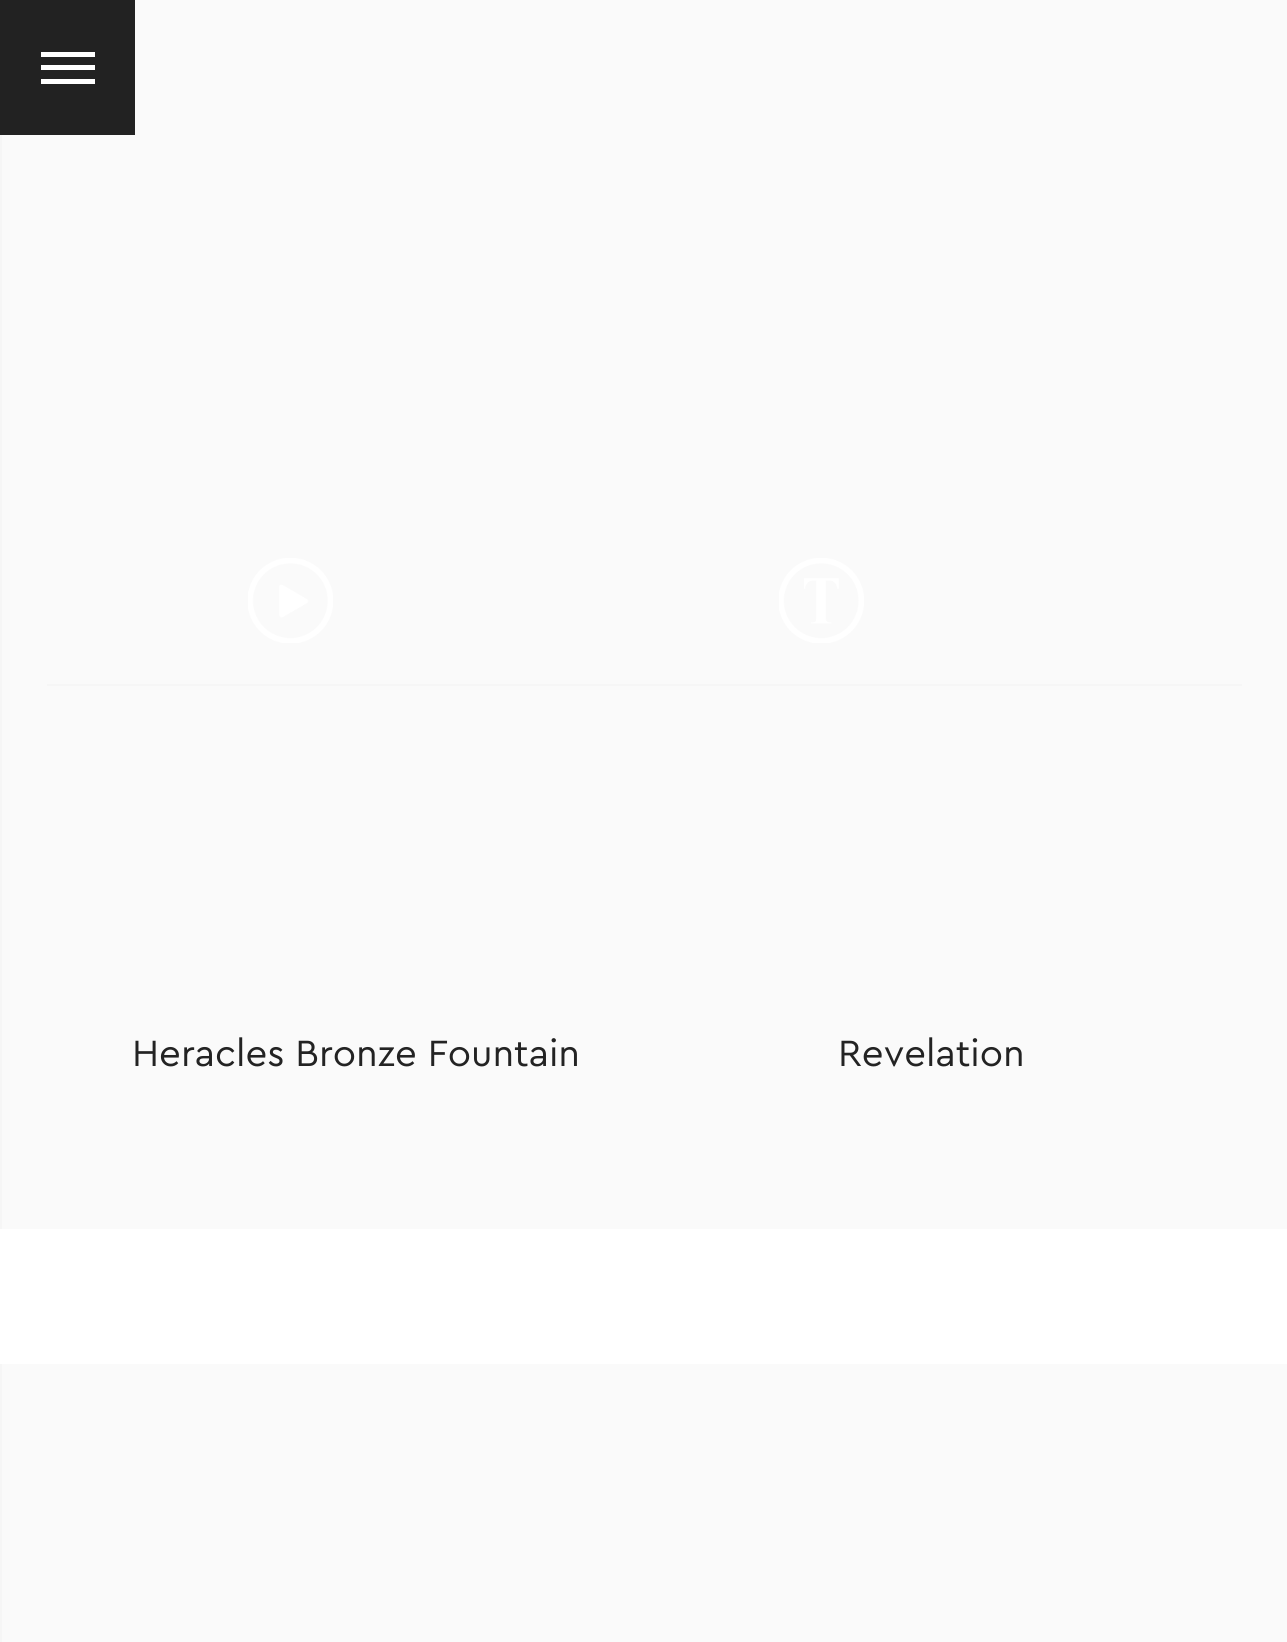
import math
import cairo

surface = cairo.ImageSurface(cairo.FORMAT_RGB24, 1287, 1642)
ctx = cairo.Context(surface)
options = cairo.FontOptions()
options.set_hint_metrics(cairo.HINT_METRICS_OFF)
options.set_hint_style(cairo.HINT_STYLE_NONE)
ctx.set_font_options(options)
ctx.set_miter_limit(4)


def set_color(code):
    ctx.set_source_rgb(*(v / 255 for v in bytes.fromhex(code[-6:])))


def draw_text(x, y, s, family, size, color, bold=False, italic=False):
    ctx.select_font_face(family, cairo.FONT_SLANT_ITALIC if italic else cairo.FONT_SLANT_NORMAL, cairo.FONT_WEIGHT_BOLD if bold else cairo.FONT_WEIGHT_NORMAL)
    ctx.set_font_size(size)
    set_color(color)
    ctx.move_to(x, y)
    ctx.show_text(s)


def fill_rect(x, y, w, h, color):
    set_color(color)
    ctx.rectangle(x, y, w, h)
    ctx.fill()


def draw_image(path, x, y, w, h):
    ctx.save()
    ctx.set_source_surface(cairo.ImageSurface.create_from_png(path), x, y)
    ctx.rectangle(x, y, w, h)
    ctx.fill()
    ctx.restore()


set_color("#fafafa")
ctx.paint()
fill_rect(0, 0, 135, 135, "#222222")
fill_rect(41, 52, 54, 5, "#ffffff")
fill_rect(41, 65, 54, 5, "#ffffff")
fill_rect(41, 79, 54, 5, "#ffffff")
fill_rect(0, 135, 2, 1507, "#f6f6f6")
fill_rect(47, 684, 1195, 2, "#f6f6f6")
draw_image("assets/img1.png", 248, 558, 85, 85)
draw_image("assets/img2.png", 779, 558, 85, 85)
draw_text(132, 1066, "Heracles Bronze Fountain", "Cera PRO", 38.25, "#232323")
draw_text(838, 1066, "Revelation", "Cera PRO", 38.25, "#232323")
fill_rect(0, 1229, 1287, 135, "#ffffff")
surface.write_to_png("output.png")
